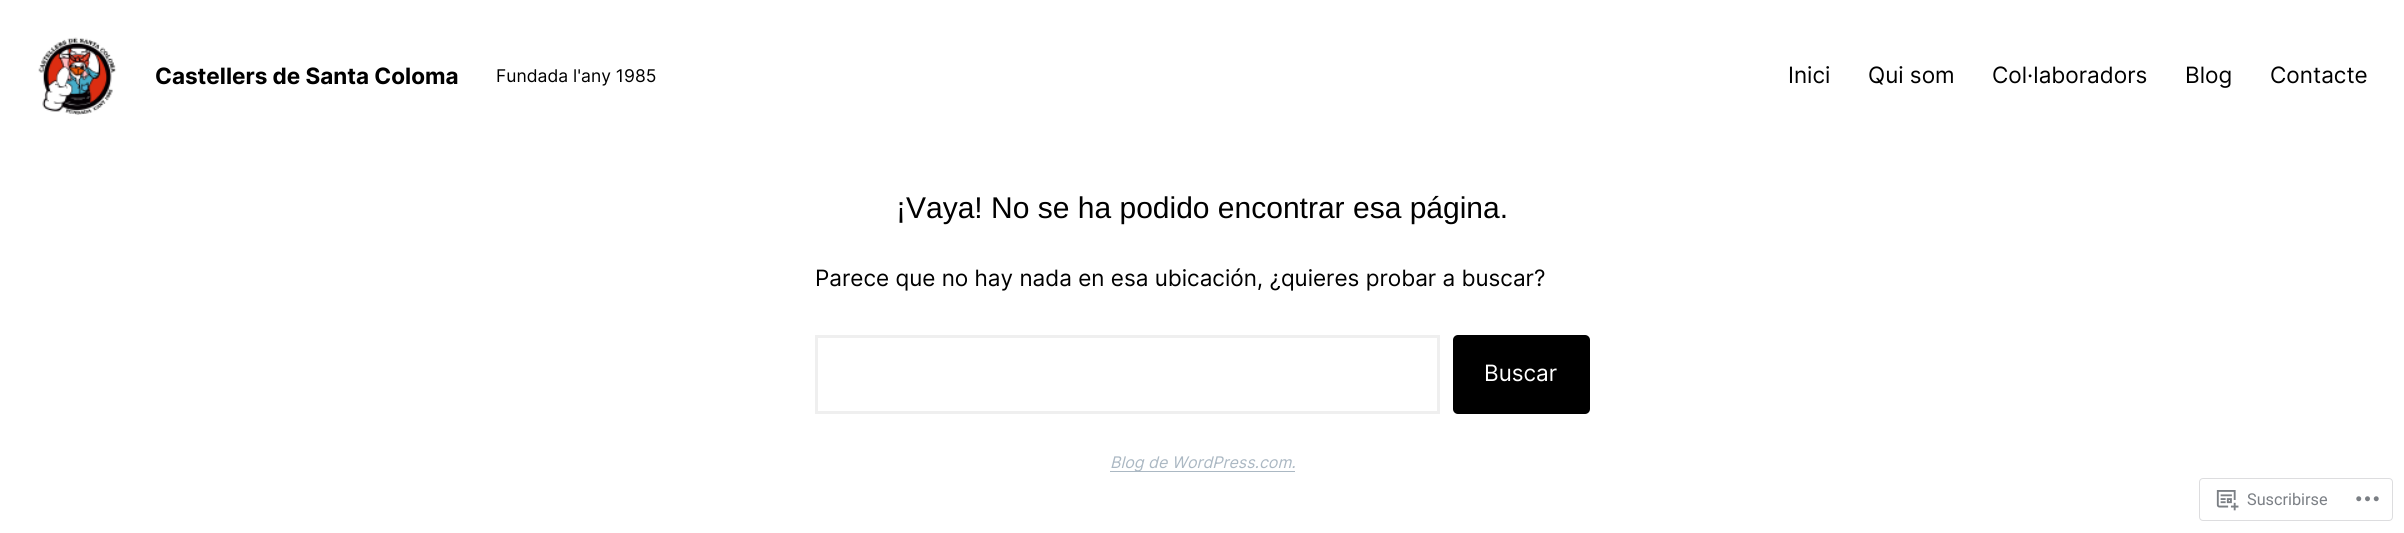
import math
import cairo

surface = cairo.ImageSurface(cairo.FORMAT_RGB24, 2404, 533)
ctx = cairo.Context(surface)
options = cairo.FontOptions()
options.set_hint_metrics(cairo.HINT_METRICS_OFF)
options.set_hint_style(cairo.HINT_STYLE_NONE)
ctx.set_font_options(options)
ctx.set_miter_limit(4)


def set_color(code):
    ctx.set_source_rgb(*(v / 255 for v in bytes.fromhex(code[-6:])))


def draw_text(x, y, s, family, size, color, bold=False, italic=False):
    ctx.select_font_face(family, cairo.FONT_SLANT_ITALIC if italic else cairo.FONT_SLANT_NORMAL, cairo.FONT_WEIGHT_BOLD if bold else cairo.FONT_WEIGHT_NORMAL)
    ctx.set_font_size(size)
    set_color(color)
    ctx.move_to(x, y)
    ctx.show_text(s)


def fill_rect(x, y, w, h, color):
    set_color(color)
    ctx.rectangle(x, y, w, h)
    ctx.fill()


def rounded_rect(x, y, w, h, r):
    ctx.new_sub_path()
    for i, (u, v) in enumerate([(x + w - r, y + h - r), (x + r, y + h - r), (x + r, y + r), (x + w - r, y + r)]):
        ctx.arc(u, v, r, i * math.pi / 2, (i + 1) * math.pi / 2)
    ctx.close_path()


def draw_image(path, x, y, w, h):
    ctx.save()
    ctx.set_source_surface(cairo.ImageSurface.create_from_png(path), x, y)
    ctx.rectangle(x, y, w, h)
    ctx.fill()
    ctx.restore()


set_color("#ffffff")
ctx.paint()
draw_image("assets/img1.png", 38, 37, 79, 78)
draw_text(155, 84, "Castellers de Santa Coloma", "Inter", 22.5, "#000000", bold=True)
draw_text(496, 82, "Fundada l'any 1985", "Inter", 17.5, "#000000")
draw_text(1788, 83, "Inici", "Inter", 22.5, "#000000")
draw_text(1868, 83, "Qui som", "Inter", 22.5, "#000000")
draw_text(1992, 83, "Col·laboradors", "Inter", 22.5, "#000000")
draw_text(2185, 83, "Blog", "Inter", 22.5, "#000000")
draw_text(2270, 83, "Contacte", "Inter", 22.5, "#000000")
draw_text(896, 218, "¡Vaya! No se ha podido encontrar esa página.", "Liberation Sans", 30, "#000000")
draw_text(815, 286, "Parece que no hay nada en esa ubicación, ¿quieres probar a buscar?", "Inter", 22.5, "#000000")
ctx.rectangle(816.5, 336.5, 622, 76)
set_color("#efefef")
ctx.set_line_width(3)
ctx.stroke()
set_color("#000000")
rounded_rect(1453, 335, 137, 79, 5)
ctx.fill()
draw_text(1484, 381, "Buscar", "Inter", 22.5, "#ffffff")
fill_rect(1110, 471, 185, 1, "#abb8c3")
draw_text(1110, 468, "Blog de WordPress.com.", "Inter", 16, "#abb8c3", italic=True)
rounded_rect(2199.5, 478.5, 193, 42, 3.5)
set_color("#dddddf")
ctx.set_line_width(1)
ctx.stroke()
draw_image("assets/img2.png", 2216, 490, 23, 21)
draw_text(2247, 505, "Suscribirse", "Roboto", 16.25, "#7b7f85")
draw_image("assets/img3.png", 2356, 496, 23, 6)
surface.write_to_png("output.png")
